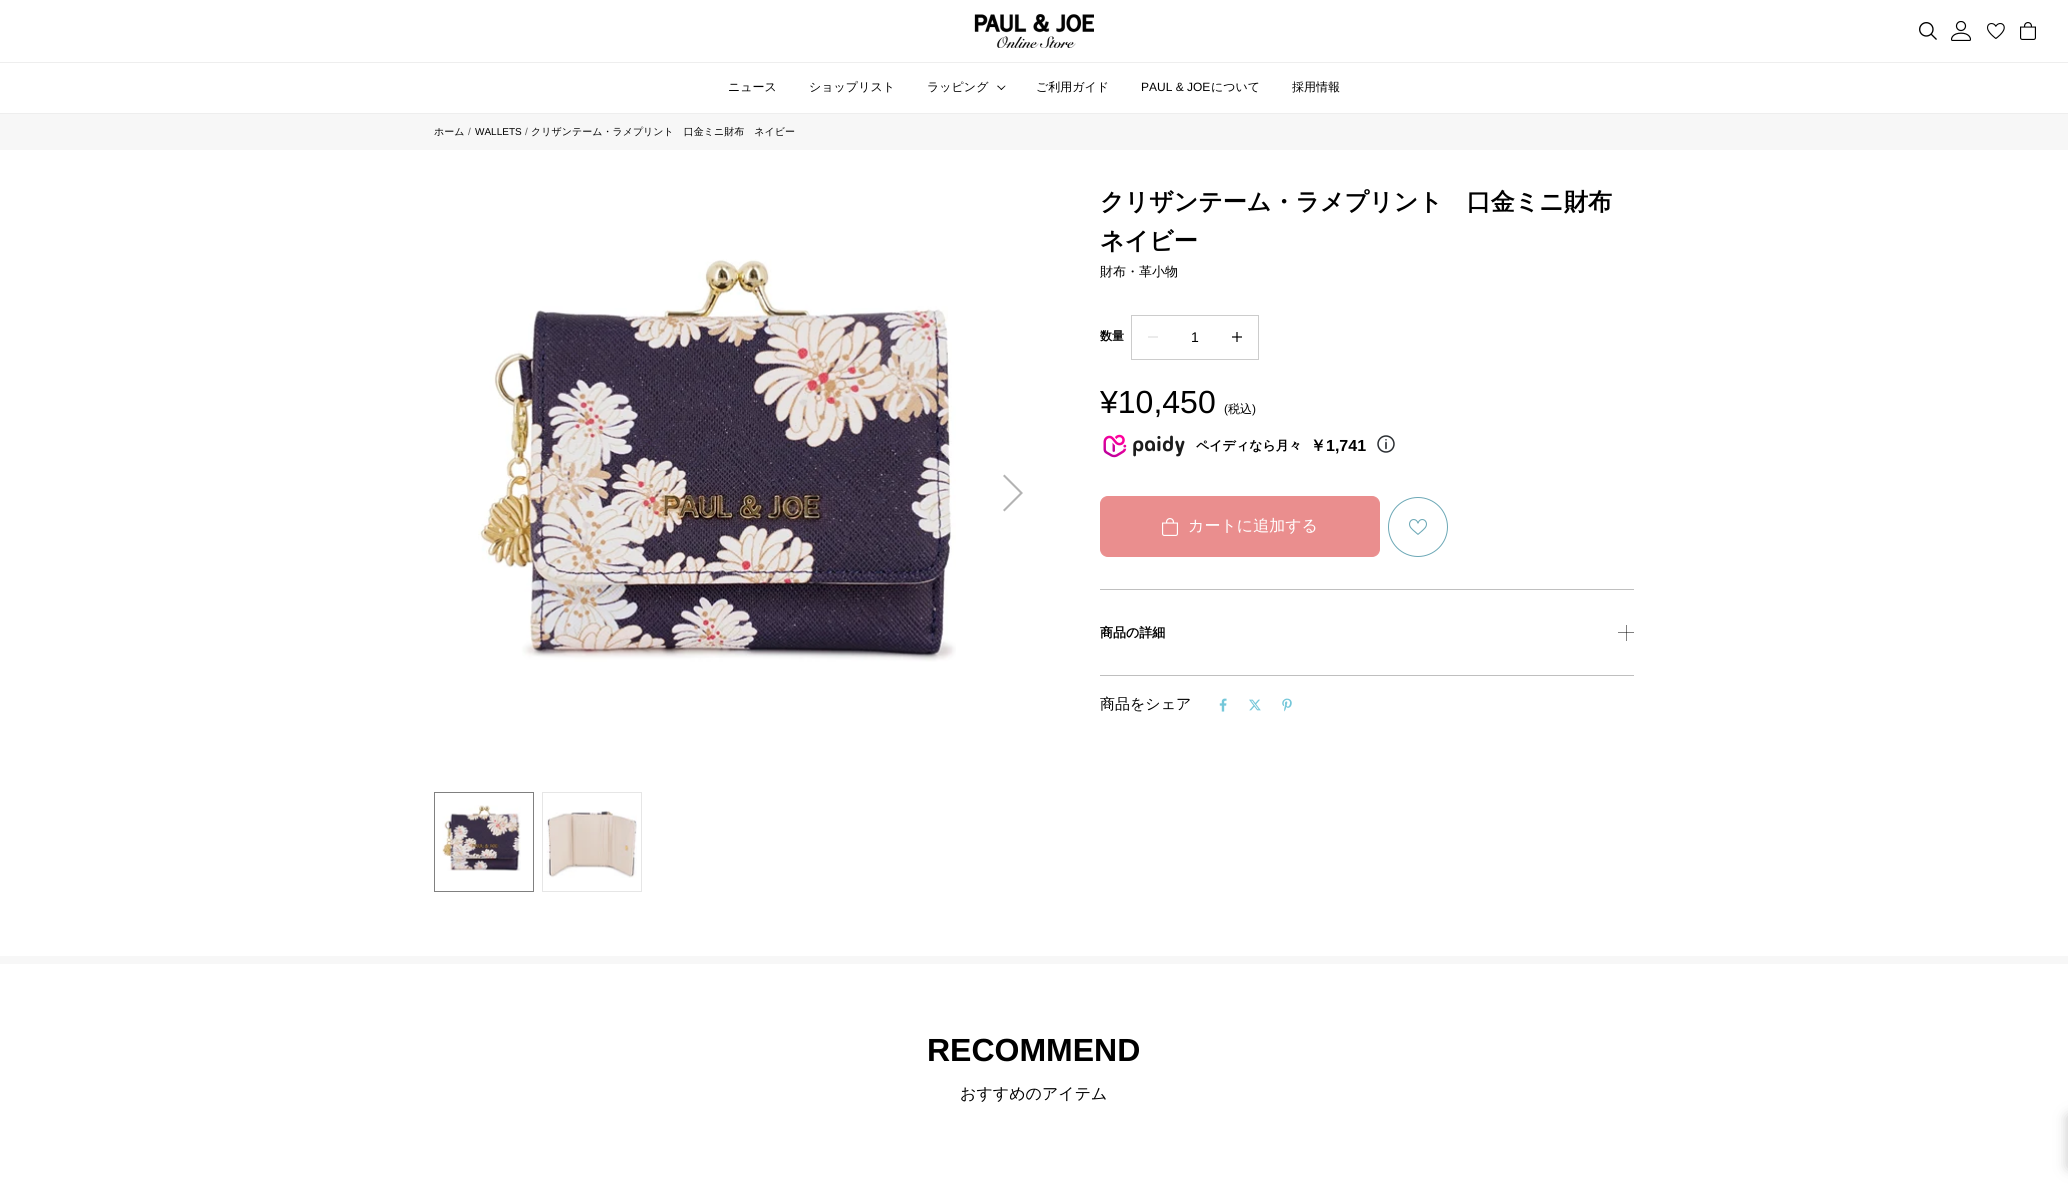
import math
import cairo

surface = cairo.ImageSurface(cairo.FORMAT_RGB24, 2068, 1197)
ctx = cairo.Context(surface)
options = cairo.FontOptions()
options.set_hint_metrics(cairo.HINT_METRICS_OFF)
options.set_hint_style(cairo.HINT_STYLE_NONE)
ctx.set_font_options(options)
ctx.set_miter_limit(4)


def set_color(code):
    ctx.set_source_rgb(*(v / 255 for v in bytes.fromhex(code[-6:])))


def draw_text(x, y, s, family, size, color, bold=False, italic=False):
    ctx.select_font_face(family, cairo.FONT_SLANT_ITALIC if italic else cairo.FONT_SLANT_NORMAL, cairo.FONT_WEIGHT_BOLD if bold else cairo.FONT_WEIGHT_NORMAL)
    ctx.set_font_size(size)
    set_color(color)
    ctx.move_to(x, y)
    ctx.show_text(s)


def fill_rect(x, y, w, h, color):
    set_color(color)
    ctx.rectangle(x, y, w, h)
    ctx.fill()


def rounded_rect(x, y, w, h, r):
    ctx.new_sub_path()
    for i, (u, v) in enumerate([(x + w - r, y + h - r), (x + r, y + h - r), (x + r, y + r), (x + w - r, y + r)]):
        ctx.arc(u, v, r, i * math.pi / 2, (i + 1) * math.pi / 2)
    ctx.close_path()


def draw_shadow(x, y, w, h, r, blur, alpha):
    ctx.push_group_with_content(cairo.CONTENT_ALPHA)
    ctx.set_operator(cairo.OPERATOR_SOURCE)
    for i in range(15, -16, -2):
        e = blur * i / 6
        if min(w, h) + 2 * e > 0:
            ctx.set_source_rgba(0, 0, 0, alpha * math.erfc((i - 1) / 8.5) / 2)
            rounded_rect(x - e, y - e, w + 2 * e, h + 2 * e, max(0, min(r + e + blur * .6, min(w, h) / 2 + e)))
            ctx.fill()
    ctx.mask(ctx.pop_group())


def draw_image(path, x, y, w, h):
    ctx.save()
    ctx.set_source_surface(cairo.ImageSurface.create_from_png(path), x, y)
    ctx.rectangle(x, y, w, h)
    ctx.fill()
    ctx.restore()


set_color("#ffffff")
ctx.paint()
fill_rect(1618, 632, 16, 1, "#808080")
draw_image("assets/img1.png", 974, 14, 120, 34)
draw_image("assets/img2.png", 1919, 22, 18, 18)
draw_image("assets/img3.png", 1951, 21, 20, 20)
draw_image("assets/img4.png", 1987, 23, 18, 16)
draw_image("assets/img5.png", 2020, 22, 16, 18)
fill_rect(0, 62, 2068, 1, "#eeeeee")
draw_text(728, 91, "ニュース", "WenQuanYi Zen Hei Medium", 12, "#000000")
draw_text(809, 91, "ショップリスト", "WenQuanYi Zen Hei Medium", 12, "#000000")
draw_text(927, 91, "ラッピング", "WenQuanYi Zen Hei Medium", 12, "#000000")
ctx.new_path()
ctx.move_to(1005, 85.5)
ctx.line_to(1005.5, 86)
ctx.line_to(1001.5, 90)
ctx.line_to(1000.5, 89.5)
ctx.close_path()
ctx.fill()
ctx.new_path()
ctx.move_to(998, 85.5)
ctx.line_to(1002, 89.5)
ctx.line_to(1001.5, 90)
ctx.line_to(997, 86)
ctx.close_path()
ctx.fill()
draw_text(1036, 91, "ご利用ガイド", "WenQuanYi Zen Hei Medium", 12, "#000000")
draw_text(1141, 91, "PAUL & JOE", "Liberation Sans", 12, "#000000")
draw_text(1211, 91, "について", "WenQuanYi Zen Hei Medium", 12, "#000000")
draw_text(1292, 91, "採用情報", "WenQuanYi Zen Hei Medium", 12, "#000000")
fill_rect(0, 113, 2068, 1, "#eeeeee")
fill_rect(0, 114, 2068, 36, "#f7f7f7")
draw_text(434, 135, "ホーム", "WenQuanYi Zen Hei Medium", 10, "#000000")
draw_text(468, 135, "/", "Liberation Sans", 10, "#565656")
draw_text(475, 135, "WALLETS", "Liberation Sans", 10, "#000000")
draw_text(525, 135, "/", "Liberation Sans", 10, "#565656")
draw_text(531, 135, "クリザンテーム・ラメプリント　口金ミニ財布　ネイビー", "WenQuanYi Zen Hei Medium", 10, "#000000")
draw_text(1100, 210, "クリザンテーム・ラメプリント　口金ミニ財布", "WenQuanYi Zen Hei", 24, "#000000", bold=True)
draw_text(1100, 249, "ネイビー", "WenQuanYi Zen Hei", 24, "#000000", bold=True)
draw_text(1100, 276, "財布・革小物", "WenQuanYi Zen Hei Medium", 13, "#000000")
draw_image("assets/img6.png", 478, 259, 478, 403)
ctx.new_path()
ctx.move_to(1004.5, 510)
ctx.line_to(1021.5, 493)
ctx.line_to(1004.5, 476)
set_color("#b3b3b3")
ctx.set_line_width(2.1)
ctx.set_line_cap(cairo.LINE_CAP_SQUARE)
ctx.stroke()
ctx.rectangle(434.5, 792.5, 99, 99)
set_color("#808080")
ctx.set_line_width(1)
ctx.set_line_cap(cairo.LINE_CAP_BUTT)
ctx.stroke()
draw_image("assets/img7.png", 442, 805, 79, 66)
ctx.rectangle(542.5, 792.5, 99, 99)
set_color("#e6e6e6")
ctx.stroke()
draw_image("assets/img8.png", 546, 810, 91, 68)
draw_text(1100, 340, "数量", "WenQuanYi Zen Hei", 12, "#000000", bold=True)
ctx.rectangle(1131.5, 315.5, 127, 44)
set_color("#cccccc")
ctx.stroke()
ctx.new_path()
ctx.move_to(1148, 337)
ctx.line_to(1158, 337)
set_color("#dedede")
ctx.set_line_width(1.2)
ctx.stroke()
draw_text(1191, 342, "1", "Liberation Sans", 14, "#000000")
ctx.new_path()
ctx.move_to(1237, 332)
ctx.line_to(1237, 342)
ctx.move_to(1232, 337)
ctx.line_to(1242, 337)
ctx.stroke()
draw_text(1100, 413, "¥10,450", "Liberation Sans", 32, "#000000")
draw_text(1224, 413, "(", "Liberation Sans", 12, "#000000")
draw_text(1228, 413, "税込", "WenQuanYi Zen Hei Medium", 12, "#000000")
draw_text(1252, 413, ")", "Liberation Sans", 12, "#000000")
draw_image("assets/img9.png", 1103, 434, 82, 24)
draw_text(1196, 450, "ペイディなら月々", "WenQuanYi Zen Hei", 13, "#000000", bold=True)
draw_text(1310, 451, "￥", "WenQuanYi Zen Hei", 16, "#000000", bold=True)
draw_text(1326, 451, "1,741", "Liberation Sans", 16, "#000000", bold=True)
draw_image("assets/img10.png", 1377, 435, 18, 18)
set_color("#ea8e8e")
rounded_rect(1100.5, 496.5, 279, 60, 7.5)
ctx.fill_preserve()
ctx.set_line_width(1)
ctx.stroke()
draw_image("assets/img11.png", 1162, 518, 16, 18)
draw_text(1188, 531, "カートに追加する", "WenQuanYi Zen Hei Medium", 16, "#ffffff")
fill_rect(1100, 589, 534, 1, "#bfbfbf")
fill_rect(1100, 675, 534, 1, "#bfbfbf")
draw_text(1100, 637, "商品の詳細", "WenQuanYi Zen Hei", 13, "#000000", bold=True)
fill_rect(1626, 625, 1, 16, "#808080")
fill_rect(1626, 632, 1, 1, "#404040")
draw_text(1100, 709, "商品をシェア", "WenQuanYi Zen Hei Medium", 15, "#000000")
draw_image("assets/img12.png", 1219, 698, 8, 14)
draw_image("assets/img13.png", 1249, 699, 12, 12)
draw_image("assets/img14.png", 1282, 698, 10, 14)
fill_rect(0, 956, 2068, 8, "#f7f7f7")
draw_text(927, 1061, "RECOMMEND", "Liberation Sans", 32, "#000000", bold=True)
draw_text(960, 1099, "おすすめのアイテム", "WenQuanYi Zen Hei Medium", 16, "#000000")
ctx.new_path()
ctx.arc(1418, 527, 29.5, 0, 2 * math.pi)
set_color("#6ca8b6")
ctx.stroke()
draw_image("assets/img15.png", 1409, 519, 18, 16)
set_color("#757575")
draw_shadow(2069, 1117, 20, 50, 0, 7, 0.5)
surface.write_to_png("output.png")
